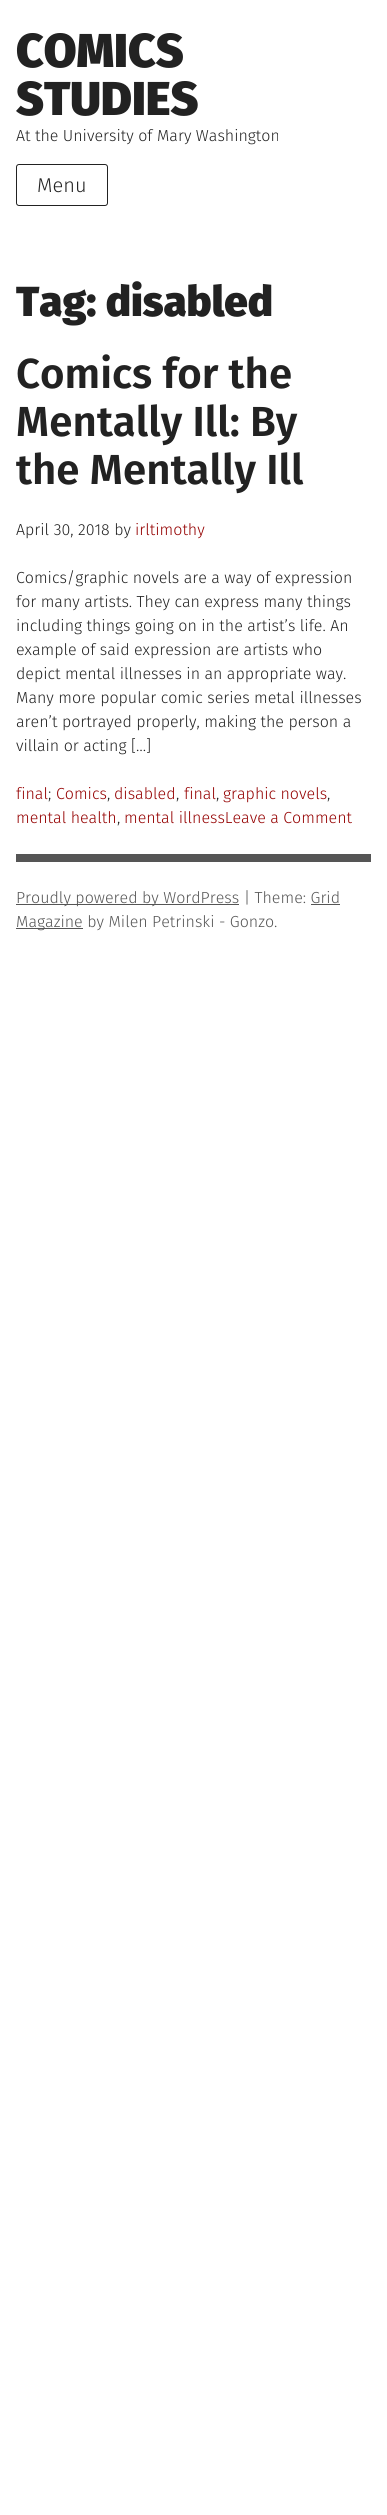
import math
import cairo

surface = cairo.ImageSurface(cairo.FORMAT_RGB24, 387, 2515)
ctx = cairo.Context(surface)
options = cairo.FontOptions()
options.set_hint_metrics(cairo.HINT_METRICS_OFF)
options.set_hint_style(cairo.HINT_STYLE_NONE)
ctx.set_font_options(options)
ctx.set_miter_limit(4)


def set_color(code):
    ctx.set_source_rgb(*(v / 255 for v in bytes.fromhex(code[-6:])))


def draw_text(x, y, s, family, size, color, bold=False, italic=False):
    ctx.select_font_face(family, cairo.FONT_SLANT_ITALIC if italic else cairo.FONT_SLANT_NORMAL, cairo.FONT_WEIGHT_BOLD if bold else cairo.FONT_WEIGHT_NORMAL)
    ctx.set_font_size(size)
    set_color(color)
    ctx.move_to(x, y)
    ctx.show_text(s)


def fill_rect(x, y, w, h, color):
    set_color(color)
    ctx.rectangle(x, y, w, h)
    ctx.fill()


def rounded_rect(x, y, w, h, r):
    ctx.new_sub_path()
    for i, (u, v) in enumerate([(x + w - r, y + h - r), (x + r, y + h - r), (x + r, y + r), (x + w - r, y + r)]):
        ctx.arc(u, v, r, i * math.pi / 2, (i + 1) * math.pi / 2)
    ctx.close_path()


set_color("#ffffff")
ctx.paint()
draw_text(16, 67, "COMICS", "Fira Sans Black", 47.5, "#222222")
draw_text(16, 115, "STUDIES", "Fira Sans Black", 47.5, "#222222")
draw_text(16, 141, "At the University of Mary Washington", "Fira Sans Light", 16, "#222222")
rounded_rect(16.5, 164.5, 91, 41, 2.5)
ctx.set_line_width(1)
ctx.stroke()
draw_text(37, 192, "Menu", "Fira Sans Light", 20, "#222222")
draw_text(16, 316, "Tag: disabled", "Fira Sans Black", 42, "#222222")
draw_text(16, 388, "Comics for the", "Fira Sans SemiBold", 42, "#222222")
draw_text(16, 436, "Mentally Ill: By", "Fira Sans SemiBold", 42, "#222222")
draw_text(16, 484, "the Mentally Ill", "Fira Sans SemiBold", 42, "#222222")
draw_text(16, 535, "April 30, 2018 by", "Fira Sans Light", 16, "#222222")
draw_text(135, 535, "irltimothy", "Fira Sans Light", 16, "#940000")
draw_text(16, 583, "Comics/graphic novels are a way of expression", "Fira Sans Light", 16, "#222222")
draw_text(16, 607, "for many artists. They can express many things", "Fira Sans Light", 16, "#222222")
draw_text(16, 631, "including things going on in the artist’s life. An", "Fira Sans Light", 16, "#222222")
draw_text(16, 655, "example of said expression are artists who", "Fira Sans Light", 16, "#222222")
draw_text(16, 679, "depict mental illnesses in an appropriate way.", "Fira Sans Light", 16, "#222222")
draw_text(16, 703, "Many more popular comic series metal illnesses", "Fira Sans Light", 16, "#222222")
draw_text(16, 727, "aren’t portrayed properly, making the person a", "Fira Sans Light", 16, "#222222")
draw_text(16, 751, "villain or acting […]", "Fira Sans Light", 16, "#222222")
draw_text(16, 799, "final", "Fira Sans Light", 16, "#940000")
draw_text(48, 799, ";", "Fira Sans Light", 16, "#222222")
draw_text(56, 799, "Comics", "Fira Sans Light", 16, "#940000")
draw_text(107, 799, ",", "Fira Sans Light", 16, "#222222")
draw_text(114, 799, "disabled", "Fira Sans Light", 16, "#940000")
draw_text(176, 799, ",", "Fira Sans Light", 16, "#222222")
draw_text(184, 799, "final", "Fira Sans Light", 16, "#940000")
draw_text(216, 799, ",", "Fira Sans Light", 16, "#222222")
draw_text(223, 799, "graphic novels", "Fira Sans Light", 16, "#940000")
draw_text(327, 799, ",", "Fira Sans Light", 16, "#222222")
draw_text(16, 823, "mental health", "Fira Sans Light", 16, "#940000")
draw_text(117, 823, ",", "Fira Sans Light", 16, "#222222")
draw_text(124, 823, "mental illnessLeave a Comment", "Fira Sans Light", 16, "#940000")
fill_rect(16, 854, 355, 8, "#555555")
fill_rect(16, 904, 223, 1, "#555555")
draw_text(16, 903, "Proudly powered by WordPress | Theme: Grid", "Fira Sans Light", 16, "#555555")
fill_rect(16, 928, 67, 1, "#555555")
draw_text(16, 927, "Magazine by Milen Petrinski - Gonzo.", "Fira Sans Light", 16, "#555555")
fill_rect(311, 904, 29, 1, "#555555")
surface.write_to_png("output.png")
